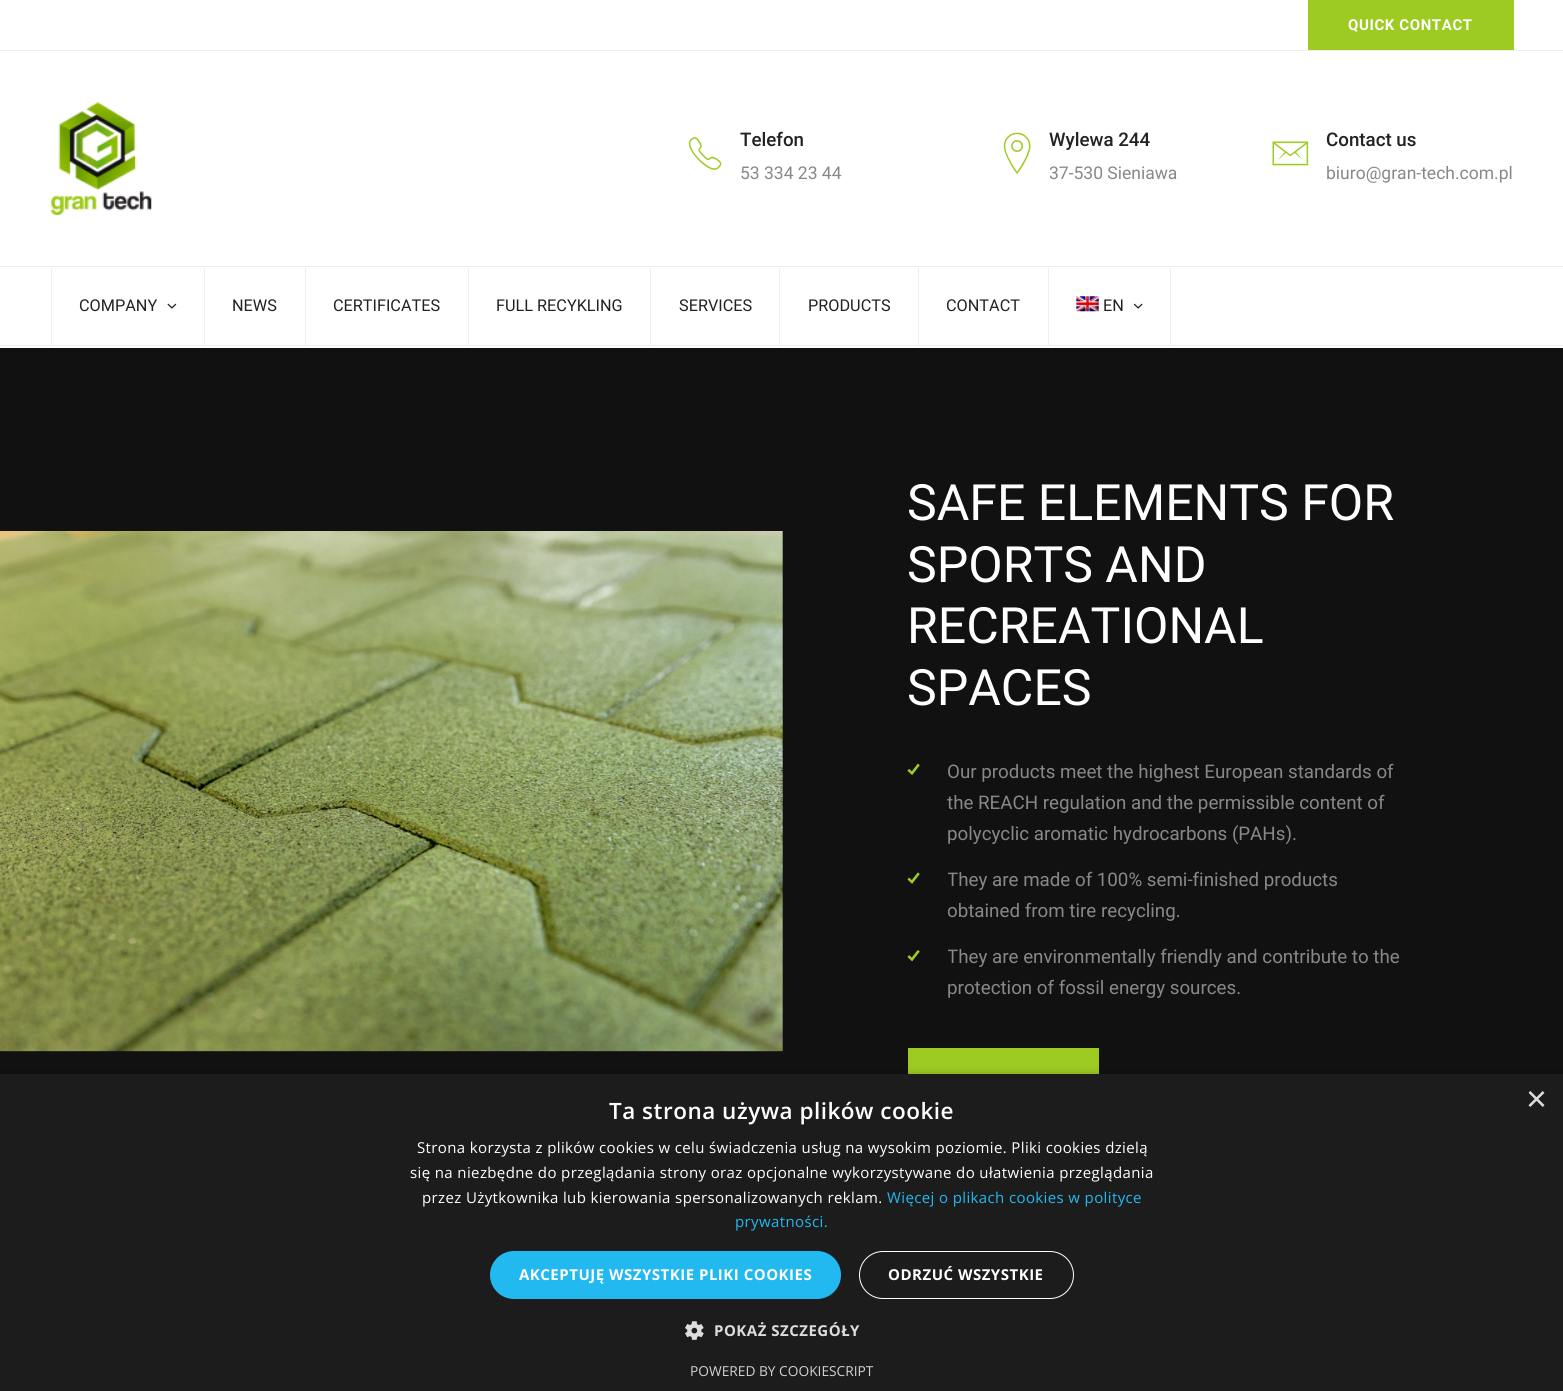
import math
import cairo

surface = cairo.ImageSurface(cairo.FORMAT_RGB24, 1563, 1391)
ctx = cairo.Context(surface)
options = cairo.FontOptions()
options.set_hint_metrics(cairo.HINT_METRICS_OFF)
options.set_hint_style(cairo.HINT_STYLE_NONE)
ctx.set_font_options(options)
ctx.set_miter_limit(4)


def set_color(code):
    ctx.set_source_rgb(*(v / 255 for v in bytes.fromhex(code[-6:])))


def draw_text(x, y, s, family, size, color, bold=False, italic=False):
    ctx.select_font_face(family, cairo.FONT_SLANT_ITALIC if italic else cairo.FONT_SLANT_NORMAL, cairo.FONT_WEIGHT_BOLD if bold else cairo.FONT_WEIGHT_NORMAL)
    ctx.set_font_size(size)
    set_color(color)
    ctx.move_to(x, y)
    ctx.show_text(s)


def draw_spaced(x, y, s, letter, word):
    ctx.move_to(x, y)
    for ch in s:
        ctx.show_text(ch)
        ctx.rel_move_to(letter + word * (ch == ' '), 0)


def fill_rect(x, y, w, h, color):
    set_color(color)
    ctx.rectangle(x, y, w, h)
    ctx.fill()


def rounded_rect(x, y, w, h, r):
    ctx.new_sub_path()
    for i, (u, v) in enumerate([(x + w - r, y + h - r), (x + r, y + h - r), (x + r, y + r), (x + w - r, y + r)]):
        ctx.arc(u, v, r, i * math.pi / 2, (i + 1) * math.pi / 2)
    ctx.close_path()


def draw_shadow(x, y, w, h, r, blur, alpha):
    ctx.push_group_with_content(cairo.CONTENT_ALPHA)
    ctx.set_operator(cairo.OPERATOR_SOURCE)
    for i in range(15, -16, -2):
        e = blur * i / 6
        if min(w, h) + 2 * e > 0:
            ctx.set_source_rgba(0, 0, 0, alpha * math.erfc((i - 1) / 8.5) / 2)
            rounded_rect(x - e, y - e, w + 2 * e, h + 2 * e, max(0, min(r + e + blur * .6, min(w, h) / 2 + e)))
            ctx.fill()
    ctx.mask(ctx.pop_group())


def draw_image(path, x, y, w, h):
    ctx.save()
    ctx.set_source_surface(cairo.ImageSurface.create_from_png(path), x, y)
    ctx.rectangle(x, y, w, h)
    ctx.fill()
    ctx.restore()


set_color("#ffffff")
ctx.paint()
fill_rect(0, 50, 1563, 1, "#eeeeee")
fill_rect(1308, 0, 206, 50, "#9dcb22")
ctx.select_font_face("Roboto", cairo.FONT_SLANT_NORMAL, cairo.FONT_WEIGHT_BOLD)
ctx.set_font_size(15)
set_color("#ffffff")
draw_spaced(1348, 30, "QUICK CONTACT", 0.6, 0)
fill_rect(0, 345, 1563, 1, "#eeeeee")
draw_image("assets/img1.png", 51, 102, 101, 114)
draw_image("assets/img2.png", 688, 137, 34, 33)
draw_text(740, 146, "Telefon", "Roboto Medium", 18.75, "#222222")
draw_text(740, 179, "53 334 23 44", "Roboto", 17.5, "#888888")
draw_image("assets/img3.png", 1003, 132, 28, 43)
draw_text(1049, 146, "Wylewa 244", "Roboto Medium", 18.75, "#222222")
draw_text(1049, 179, "37-530 Sieniawa", "Roboto", 17.5, "#888888")
draw_image("assets/img4.png", 1272, 141, 37, 25)
draw_text(1326, 146, "Contact us", "Roboto Medium", 18.75, "#222222")
draw_text(1326, 179, "biuro@gran-tech.com.pl", "Roboto", 17.5, "#888888")
fill_rect(0, 266, 1563, 1, "#eeeeee")
fill_rect(51, 268, 1, 77, "#eeeeee")
fill_rect(204, 268, 1, 77, "#eeeeee")
draw_text(79, 311, "COMPANY", "Roboto", 16.25, "#222222")
draw_image("assets/img5.png", 167, 303, 10, 6)
fill_rect(305, 268, 1, 77, "#eeeeee")
draw_text(232, 311, "NEWS", "Roboto", 16.25, "#222222")
fill_rect(468, 268, 1, 77, "#eeeeee")
draw_text(333, 311, "CERTIFICATES", "Roboto", 16.25, "#222222")
fill_rect(650, 268, 1, 77, "#eeeeee")
draw_text(496, 311, "FULL RECYKLING", "Roboto", 16.25, "#222222")
fill_rect(779, 268, 1, 77, "#eeeeee")
draw_text(679, 311, "SERVICES", "Roboto", 16.25, "#222222")
fill_rect(918, 268, 1, 77, "#eeeeee")
draw_text(808, 311, "PRODUCTS", "Roboto", 16.25, "#222222")
fill_rect(1048, 268, 1, 77, "#eeeeee")
draw_text(946, 311, "CONTACT", "Roboto", 16.25, "#222222")
fill_rect(1170, 268, 1, 77, "#eeeeee")
draw_image("assets/img6.png", 1076, 296, 23, 16)
draw_text(1103, 311, "EN", "Roboto", 16.25, "#222222")
draw_image("assets/img7.png", 1133, 303, 10, 6)
fill_rect(0, 348, 1563, 726, "#111111")
draw_image("assets/img8.png", 0, 531, 783, 521)
draw_text(907, 520, "SAFE ELEMENTS FOR", "Roboto", 50, "#ffffff")
draw_text(907, 582, "SPORTS AND", "Roboto", 50, "#ffffff")
draw_text(907, 643, "RECREATIONAL", "Roboto", 50, "#ffffff")
draw_text(907, 705, "SPACES", "Roboto", 50, "#ffffff")
draw_image("assets/img9.png", 907, 763, 13, 12)
draw_text(947, 778, "Our products meet the highest European standards of", "Roboto", 18.75, "#888888")
draw_text(947, 809, "the REACH regulation and the permissible content of", "Roboto", 18.75, "#888888")
draw_text(947, 840, "polycyclic aromatic hydrocarbons (PAHs).", "Roboto", 18.75, "#888888")
draw_image("assets/img10.png", 907, 872, 13, 12)
ctx.save()
ctx.rectangle(948, 865, 453, 63)
ctx.clip()
draw_text(947, 886, "They are made of 100% semi-finished products", "Roboto", 18.75, "#888888")
draw_text(947, 917, "obtained from tire recycling.", "Roboto", 18.75, "#888888")
ctx.restore()
draw_image("assets/img11.png", 907, 950, 13, 12)
ctx.save()
ctx.rectangle(948, 943, 453, 61)
ctx.clip()
draw_text(947, 963, "They are environmentally friendly and contribute to the", "Roboto", 18.75, "#888888")
ctx.restore()
draw_text(947, 994, "protection of fossil energy sources.", "Roboto", 18.75, "#888888")
fill_rect(908, 1048, 191, 26, "#9dcb22")
set_color("#000000")
draw_shadow(1, 1076, 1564, 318, 0, 5, 0.35)
fill_rect(0, 1074, 1563, 317, "#1c1c1c")
draw_text(1526, 1111, "×", "Liberation Sans", 36, "#dddddd")
ctx.select_font_face("Open Sans SemiBold")
ctx.set_font_size(22.5)
set_color("#ffffff")
draw_spaced(609, 1119, "Ta strona używa plików cookie", 0.5, 0)
ctx.select_font_face("Open Sans")
ctx.set_font_size(15)
draw_spaced(417, 1153, "Strona korzysta z plików cookies w celu świadczenia usług na wysokim poziomie. Pliki cookies dzielą", 0.38, 0)
draw_spaced(410, 1178, "się na niezbędne do przeglądania strony oraz opcjonalne wykorzystywane do ułatwienia przeglądania", 0.38, 0)
draw_spaced(422, 1203, "przez Użytkownika lub kierowania spersonalizowanych reklam.", 0.38, 0)
set_color("#22b8f0")
draw_spaced(887, 1203, "Więcej o plikach cookies w polityce", 0.38, 0)
draw_spaced(735, 1227, "prywatności.", 0.38, 0)
rounded_rect(490, 1251, 351, 48, 24)
ctx.fill()
ctx.select_font_face("Open Sans", cairo.FONT_SLANT_NORMAL, cairo.FONT_WEIGHT_BOLD)
set_color("#ffffff")
draw_spaced(519, 1280, "AKCEPTUJĘ WSZYSTKIE PLIKI COOKIES", 0.5, 0)
rounded_rect(859.5, 1251.5, 214, 47, 23.5)
ctx.set_line_width(1)
ctx.stroke()
draw_spaced(888, 1280, "ODRZUĆ WSZYSTKIE", 0.5, 0)
draw_image("assets/img12.png", 685, 1321, 19, 19)
set_color("#dddddd")
draw_spaced(714, 1336, "POKAŻ SZCZEGÓŁY", 0.5, 0)
draw_text(690, 1376, "POWERED BY COOKIESCRIPT", "Open Sans", 13.75, "#d2d2d2")
surface.write_to_png("output.png")
